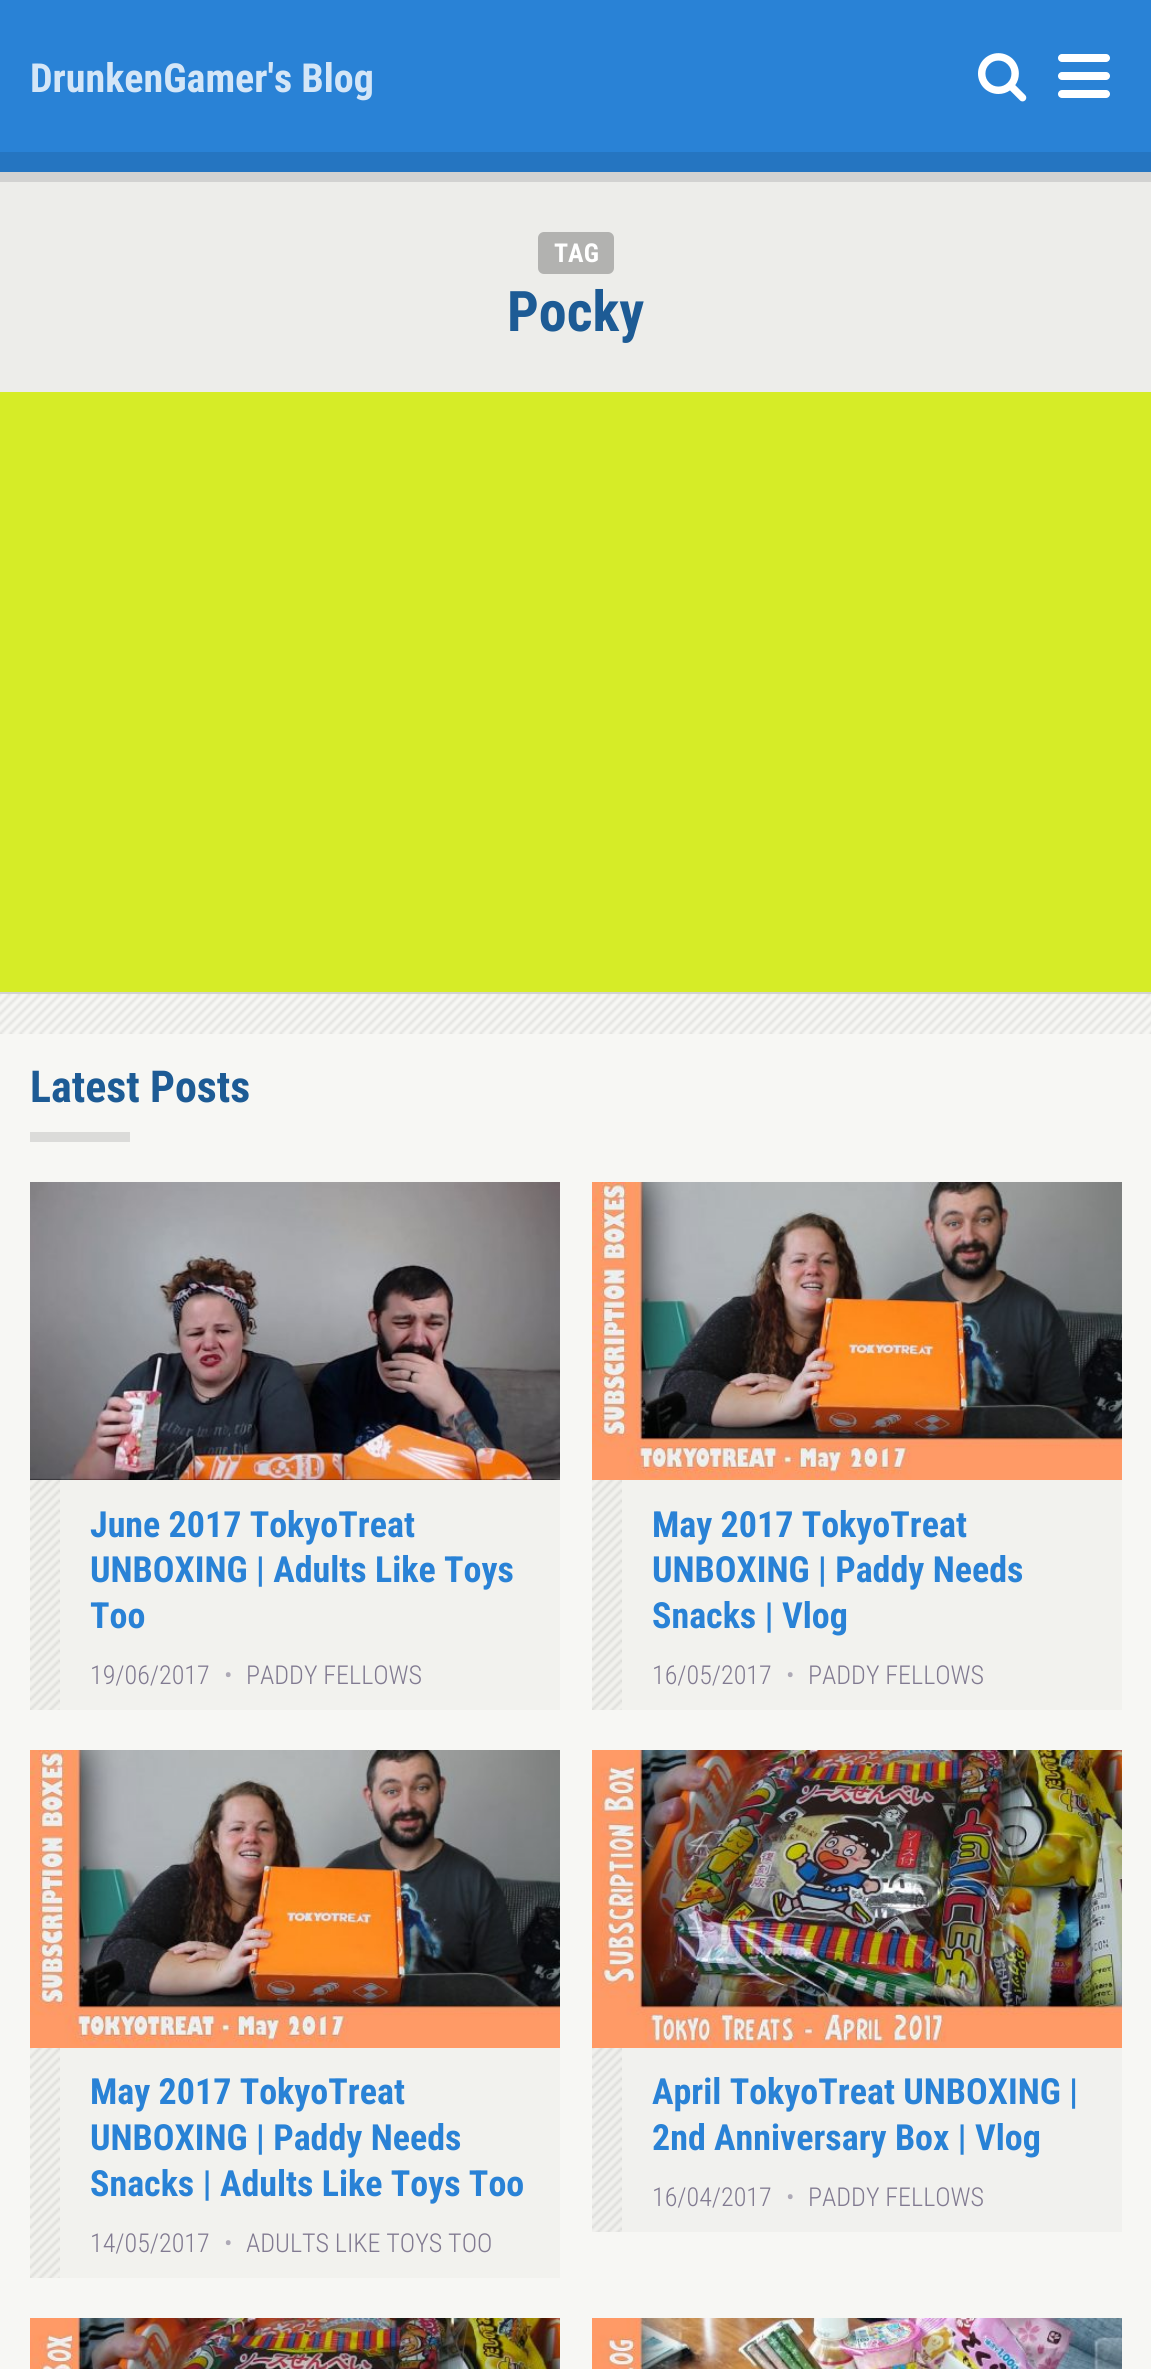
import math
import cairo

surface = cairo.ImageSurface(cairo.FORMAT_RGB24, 1151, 2369)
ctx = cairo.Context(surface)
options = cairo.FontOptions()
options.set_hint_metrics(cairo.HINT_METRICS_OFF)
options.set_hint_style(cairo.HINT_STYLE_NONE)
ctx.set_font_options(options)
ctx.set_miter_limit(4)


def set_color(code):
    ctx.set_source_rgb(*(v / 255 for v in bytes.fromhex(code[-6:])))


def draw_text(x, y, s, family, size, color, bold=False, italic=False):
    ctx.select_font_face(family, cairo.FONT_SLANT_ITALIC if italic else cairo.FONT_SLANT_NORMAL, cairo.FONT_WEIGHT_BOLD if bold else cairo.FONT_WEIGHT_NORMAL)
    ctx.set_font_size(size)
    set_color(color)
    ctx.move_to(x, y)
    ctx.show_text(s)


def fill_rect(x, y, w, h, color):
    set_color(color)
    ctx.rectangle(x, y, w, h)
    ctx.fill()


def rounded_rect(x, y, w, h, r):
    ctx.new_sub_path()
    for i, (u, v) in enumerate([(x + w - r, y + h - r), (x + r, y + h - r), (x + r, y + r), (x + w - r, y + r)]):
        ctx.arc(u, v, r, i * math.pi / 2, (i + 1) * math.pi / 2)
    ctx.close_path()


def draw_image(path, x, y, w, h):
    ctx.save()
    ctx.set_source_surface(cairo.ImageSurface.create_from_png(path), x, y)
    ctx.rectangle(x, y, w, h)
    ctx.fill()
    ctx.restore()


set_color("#d6ec27")
ctx.paint()
fill_rect(0, 0, 1151, 152, "#2982d6")
fill_rect(0, 152, 1151, 20, "#2575c1")
draw_text(30, 92, "DrunkenGamer's Blog", "Roboto Condensed", 40, "#d4e6f7", bold=True)
draw_image("assets/img1.png", 978, 53, 49, 49)
set_color("#ffffff")
rounded_rect(1058, 54, 52, 8, 4)
ctx.fill()
rounded_rect(1058, 72, 52, 8, 4)
ctx.fill()
rounded_rect(1058, 90, 52, 8, 4)
ctx.fill()
fill_rect(0, 172, 1151, 10, "#d2d2d1")
fill_rect(0, 182, 1151, 210, "#ededea")
set_color("#b2b2b0")
rounded_rect(538, 232, 76, 42, 6)
ctx.fill()
draw_text(554, 262, "TAG", "Roboto Condensed", 26, "#ffffff", bold=True)
draw_text(507, 331, "Pocky", "Roboto Condensed", 56, "#1d5b95", bold=True)
fill_rect(0, 994, 1151, 1375, "#f7f7f4")
draw_image("assets/img2.png", 0, 994, 1151, 40)
fill_rect(0, 992, 1151, 2, "#d2d2d1")
draw_text(30, 1102, "Latest Posts", "Roboto Condensed", 44, "#1d5b95", bold=True)
fill_rect(30, 1132, 100, 10, "#dbdbd9")
draw_image("assets/img3.png", 30, 1182, 530, 298)
fill_rect(30, 1480, 530, 230, "#f2f2ee")
draw_image("assets/img4.png", 30, 1480, 30, 230)
draw_text(90, 1537, "June 2017 TokyoTreat", "Roboto Condensed", 36, "#2982d6", bold=True)
draw_text(90, 1582, "UNBOXING | Adults Like Toys", "Roboto Condensed", 36, "#2982d6", bold=True)
draw_text(90, 1628, "Too", "Roboto Condensed", 36, "#2982d6", bold=True)
draw_text(90, 1684, "19/06/2017", "Roboto Condensed Light", 26, "#817a91")
draw_text(224, 1684, "•", "Roboto Condensed Light", 26, "#aeaab6")
draw_text(246, 1684, "PADDY FELLOWS", "Roboto Condensed Light", 26, "#817a91")
draw_image("assets/img5.png", 592, 1182, 530, 298)
fill_rect(592, 1480, 530, 230, "#f2f2ee")
draw_image("assets/img4.png", 592, 1480, 30, 230)
draw_text(652, 1537, "May 2017 TokyoTreat", "Roboto Condensed", 36, "#2982d6", bold=True)
draw_text(652, 1582, "UNBOXING | Paddy Needs", "Roboto Condensed", 36, "#2982d6", bold=True)
draw_text(652, 1628, "Snacks | Vlog", "Roboto Condensed", 36, "#2982d6", bold=True)
draw_text(652, 1684, "16/05/2017", "Roboto Condensed Light", 26, "#817a91")
draw_text(786, 1684, "•", "Roboto Condensed Light", 26, "#aeaab6")
draw_text(808, 1684, "PADDY FELLOWS", "Roboto Condensed Light", 26, "#817a91")
draw_image("assets/img6.png", 30, 1750, 530, 298)
fill_rect(30, 2048, 530, 230, "#f2f2ee")
draw_image("assets/img4.png", 30, 2048, 30, 230)
draw_text(90, 2104, "May 2017 TokyoTreat", "Roboto Condensed", 36, "#2982d6", bold=True)
draw_text(90, 2150, "UNBOXING | Paddy Needs", "Roboto Condensed", 36, "#2982d6", bold=True)
draw_text(90, 2196, "Snacks | Adults Like Toys Too", "Roboto Condensed", 36, "#2982d6", bold=True)
draw_text(90, 2252, "14/05/2017", "Roboto Condensed Light", 26, "#817a91")
draw_text(224, 2252, "•", "Roboto Condensed Light", 26, "#aeaab6")
draw_text(246, 2252, "ADULTS LIKE TOYS TOO", "Roboto Condensed Light", 26, "#817a91")
draw_image("assets/img7.png", 592, 1750, 530, 298)
fill_rect(592, 2048, 530, 184, "#f1f1ee")
draw_image("assets/img8.png", 592, 2048, 30, 184)
draw_text(652, 2104, "April TokyoTreat UNBOXING |", "Roboto Condensed", 36, "#2982d6", bold=True)
draw_text(652, 2150, "2nd Anniversary Box | Vlog", "Roboto Condensed", 36, "#2982d6", bold=True)
draw_text(652, 2206, "16/04/2017", "Roboto Condensed Light", 26, "#817a91")
draw_text(786, 2206, "•", "Roboto Condensed Light", 26, "#aeaab6")
draw_text(808, 2206, "PADDY FELLOWS", "Roboto Condensed Light", 26, "#817a91")
draw_image("assets/img9.png", 30, 2318, 530, 51)
draw_image("assets/img10.png", 592, 2318, 530, 51)
surface.write_to_png("output.png")
